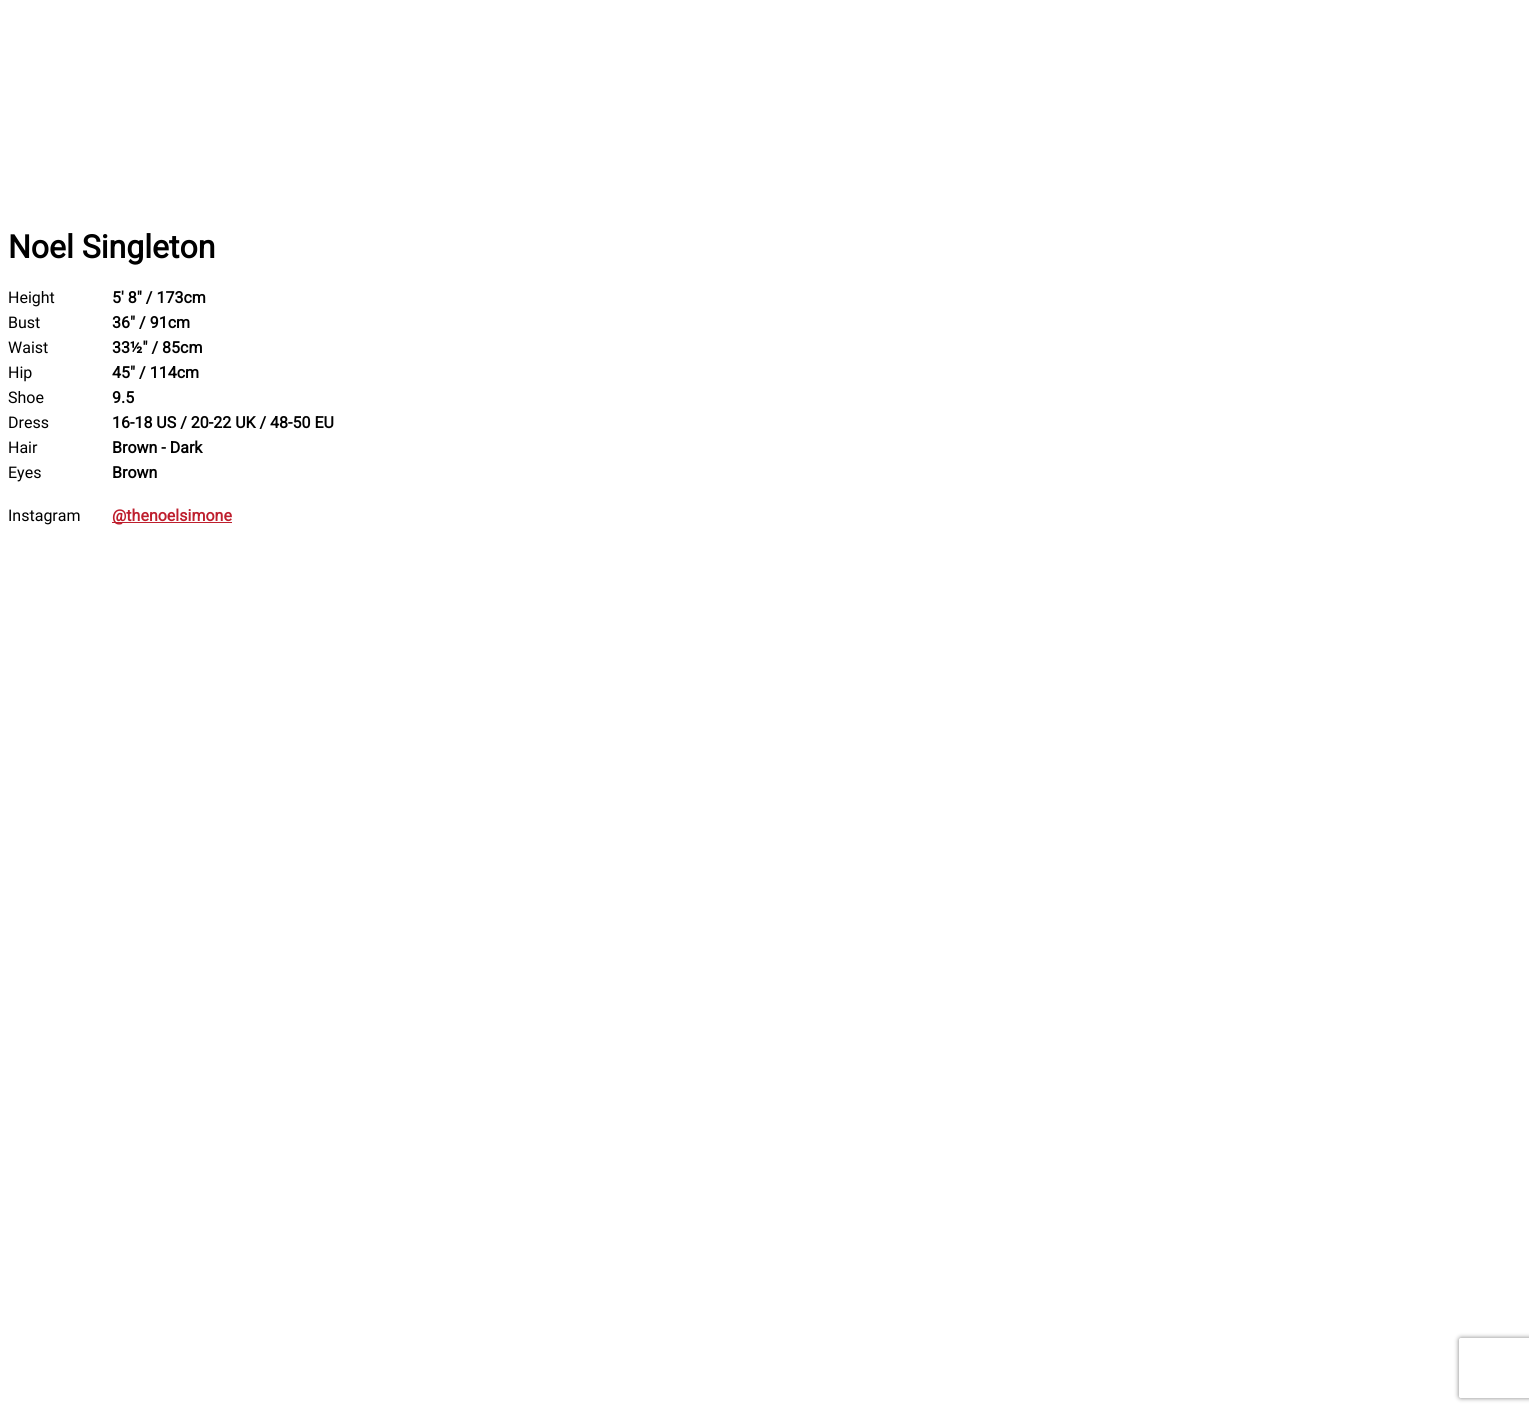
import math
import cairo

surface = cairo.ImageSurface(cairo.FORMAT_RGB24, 1529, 1412)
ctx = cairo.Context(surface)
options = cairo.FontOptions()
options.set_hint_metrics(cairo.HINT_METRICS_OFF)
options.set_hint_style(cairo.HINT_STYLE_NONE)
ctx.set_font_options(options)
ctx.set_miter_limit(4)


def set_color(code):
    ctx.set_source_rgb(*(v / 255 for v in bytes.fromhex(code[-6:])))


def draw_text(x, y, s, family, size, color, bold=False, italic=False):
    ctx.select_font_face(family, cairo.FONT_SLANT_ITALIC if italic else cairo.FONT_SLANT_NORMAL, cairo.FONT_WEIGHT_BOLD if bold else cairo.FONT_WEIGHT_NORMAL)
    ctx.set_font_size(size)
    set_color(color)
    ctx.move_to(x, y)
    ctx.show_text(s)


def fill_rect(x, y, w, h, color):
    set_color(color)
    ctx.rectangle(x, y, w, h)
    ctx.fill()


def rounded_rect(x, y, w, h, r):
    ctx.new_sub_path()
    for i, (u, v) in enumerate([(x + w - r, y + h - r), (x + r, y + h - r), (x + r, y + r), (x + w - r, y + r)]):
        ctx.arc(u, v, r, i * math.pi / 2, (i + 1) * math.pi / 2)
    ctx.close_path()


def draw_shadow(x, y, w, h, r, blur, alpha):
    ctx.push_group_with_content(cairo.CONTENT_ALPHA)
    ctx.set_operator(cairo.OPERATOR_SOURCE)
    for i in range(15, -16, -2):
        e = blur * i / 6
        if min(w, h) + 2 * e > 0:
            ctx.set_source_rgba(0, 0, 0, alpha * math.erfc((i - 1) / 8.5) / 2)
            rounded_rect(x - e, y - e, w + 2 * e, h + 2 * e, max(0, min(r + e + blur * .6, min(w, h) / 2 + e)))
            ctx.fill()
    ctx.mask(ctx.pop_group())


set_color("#ffffff")
ctx.paint()
draw_text(8, 258, "Noel Singleton", "Roboto", 32, "#000000", bold=True)
draw_text(8, 303, "Height", "Roboto", 16, "#000000")
draw_text(112, 303, "5' 8\" / 173cm", "Roboto", 16, "#000000", bold=True)
draw_text(8, 328, "Bust", "Roboto", 16, "#000000")
draw_text(112, 328, "36\" / 91cm", "Roboto", 16, "#000000", bold=True)
draw_text(8, 353, "Waist", "Roboto", 16, "#000000")
draw_text(112, 353, "33½\" / 85cm", "Roboto", 16, "#000000", bold=True)
draw_text(8, 378, "Hip", "Roboto", 16, "#000000")
draw_text(112, 378, "45\" / 114cm", "Roboto", 16, "#000000", bold=True)
draw_text(8, 403, "Shoe", "Roboto", 16, "#000000")
draw_text(112, 403, "9.5", "Roboto", 16, "#000000", bold=True)
draw_text(8, 428, "Dress", "Roboto", 16, "#000000")
draw_text(112, 428, "16-18 US / 20-22 UK / 48-50 EU", "Roboto", 16, "#000000", bold=True)
draw_text(8, 453, "Hair", "Roboto", 16, "#000000")
draw_text(112, 453, "Brown - Dark", "Roboto", 16, "#000000", bold=True)
draw_text(8, 478, "Eyes", "Roboto", 16, "#000000")
draw_text(112, 478, "Brown", "Roboto", 16, "#000000", bold=True)
draw_text(8, 521, "Instagram", "Roboto", 16, "#000000")
fill_rect(112, 522, 120, 1, "#be1e2d")
draw_text(112, 521, "@thenoelsimone", "Roboto", 16, "#be1e2d", bold=True)
ctx.save()
ctx.set_fill_rule(cairo.FILL_RULE_EVEN_ODD)
ctx.new_path()
ctx.move_to(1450, 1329)
ctx.line_to(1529, 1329)
ctx.line_to(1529, 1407)
ctx.line_to(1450, 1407)
ctx.close_path()
ctx.move_to(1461, 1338)
ctx.line_to(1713, 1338)
ctx.curve_to(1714, 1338, 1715, 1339, 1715, 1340)
ctx.line_to(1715, 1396)
ctx.curve_to(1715, 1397, 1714, 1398, 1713, 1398)
ctx.line_to(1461, 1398)
ctx.curve_to(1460, 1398, 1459, 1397, 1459, 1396)
ctx.line_to(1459, 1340)
ctx.curve_to(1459, 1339, 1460, 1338, 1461, 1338)
ctx.close_path()
ctx.clip()
set_color("#808080")
draw_shadow(1459, 1338, 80, 60, 2, 2.5, 1)
ctx.restore()
surface.write_to_png("output.png")
